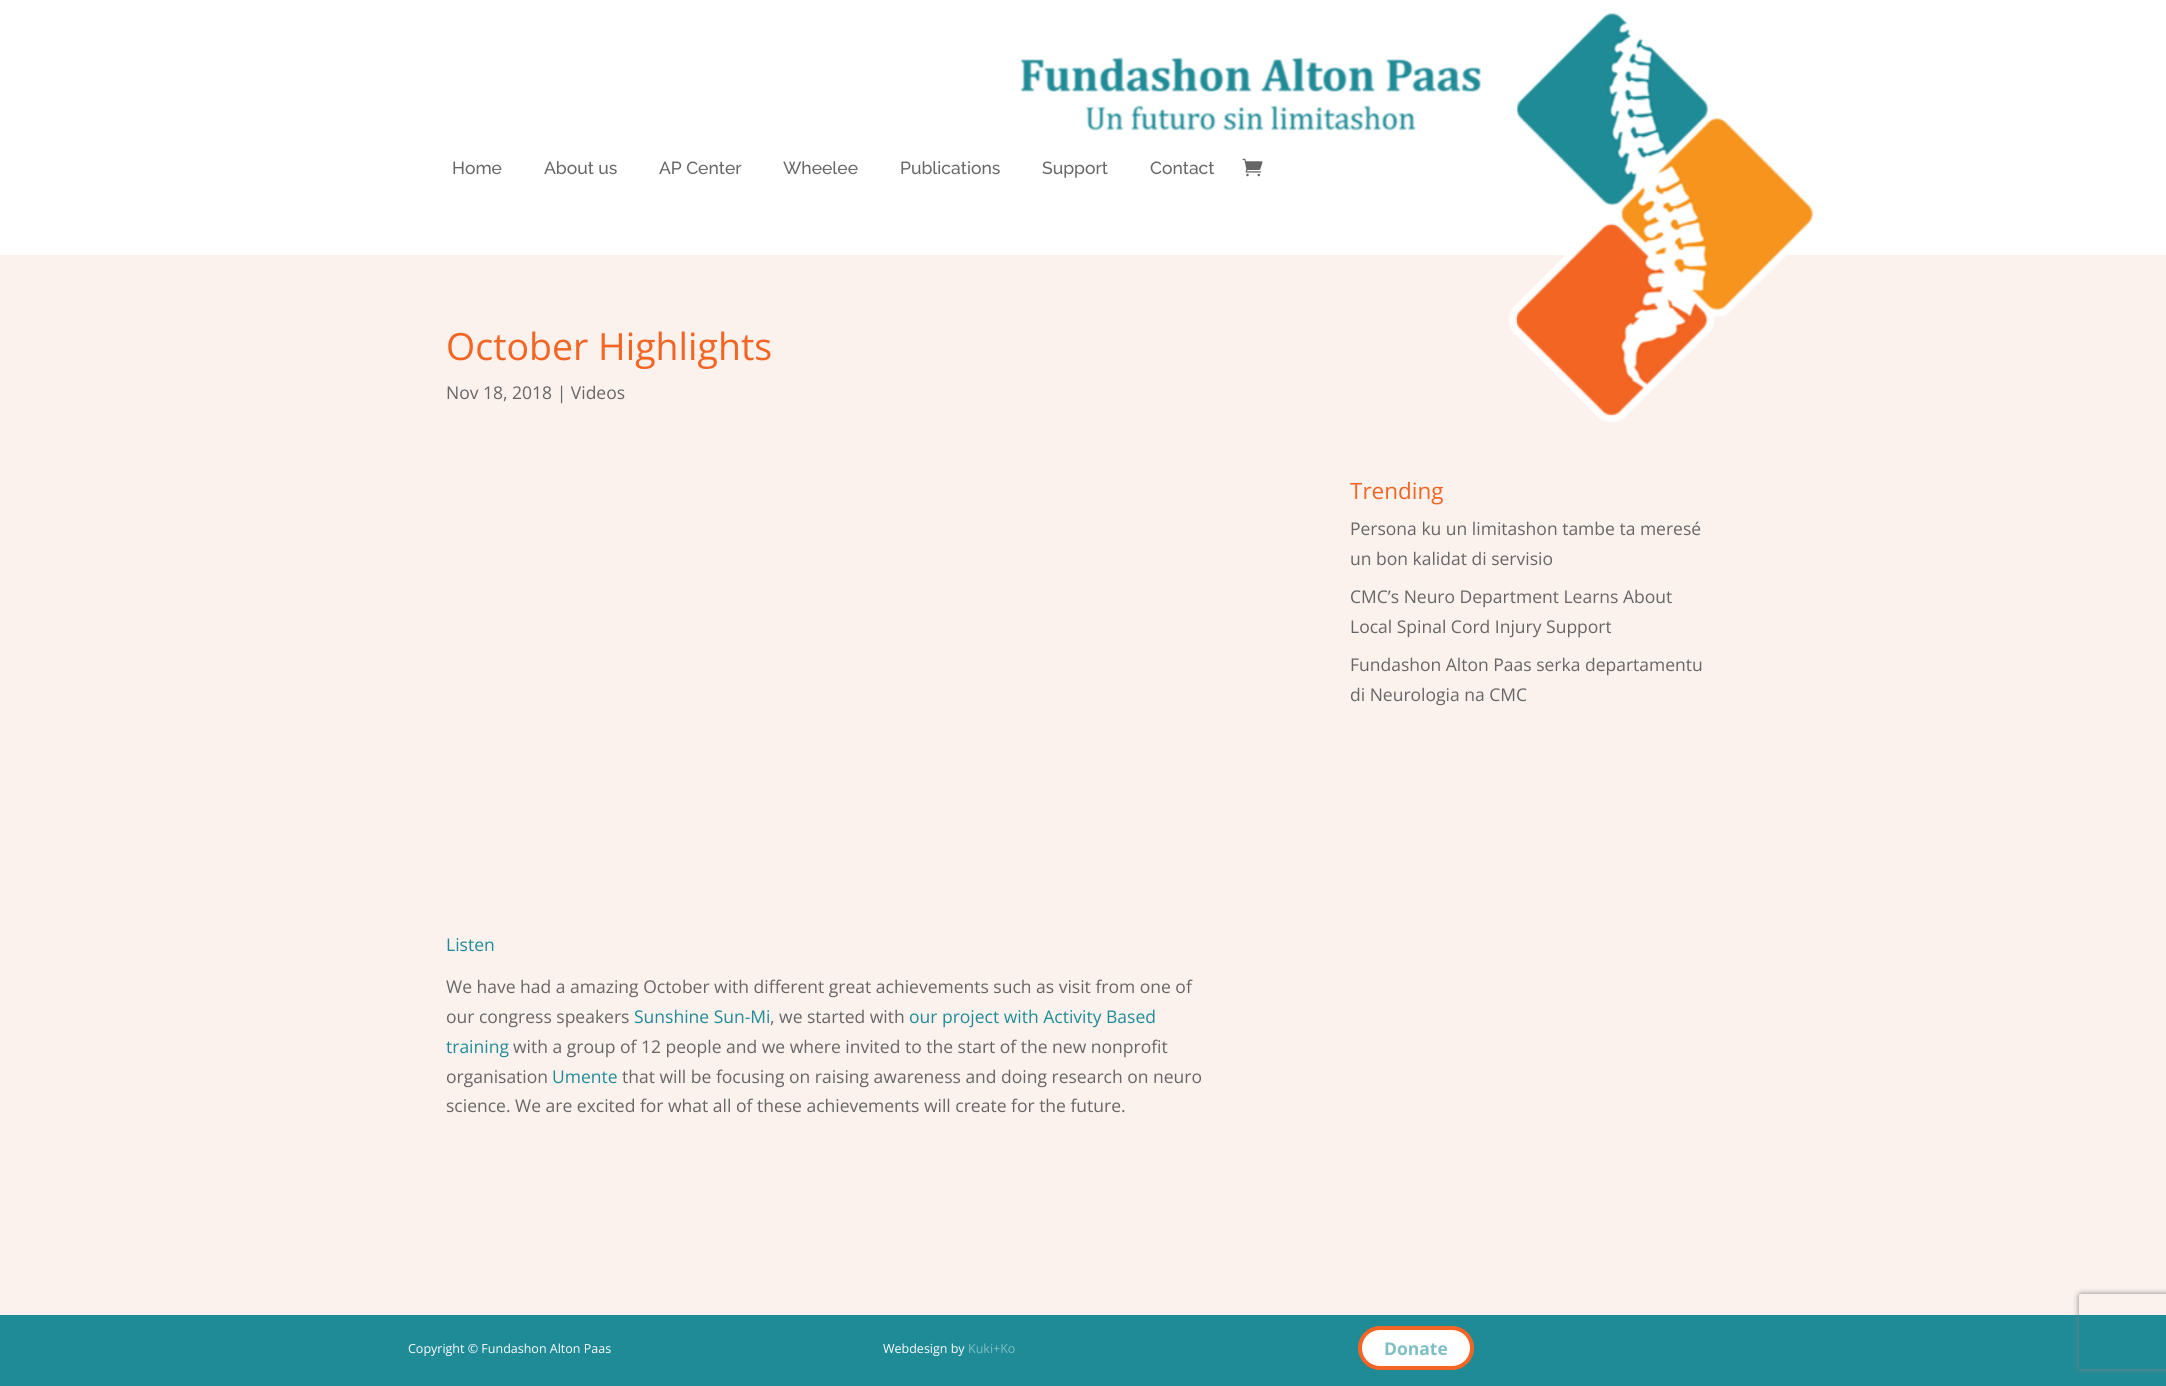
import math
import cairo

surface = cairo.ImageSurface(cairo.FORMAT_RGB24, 2166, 1386)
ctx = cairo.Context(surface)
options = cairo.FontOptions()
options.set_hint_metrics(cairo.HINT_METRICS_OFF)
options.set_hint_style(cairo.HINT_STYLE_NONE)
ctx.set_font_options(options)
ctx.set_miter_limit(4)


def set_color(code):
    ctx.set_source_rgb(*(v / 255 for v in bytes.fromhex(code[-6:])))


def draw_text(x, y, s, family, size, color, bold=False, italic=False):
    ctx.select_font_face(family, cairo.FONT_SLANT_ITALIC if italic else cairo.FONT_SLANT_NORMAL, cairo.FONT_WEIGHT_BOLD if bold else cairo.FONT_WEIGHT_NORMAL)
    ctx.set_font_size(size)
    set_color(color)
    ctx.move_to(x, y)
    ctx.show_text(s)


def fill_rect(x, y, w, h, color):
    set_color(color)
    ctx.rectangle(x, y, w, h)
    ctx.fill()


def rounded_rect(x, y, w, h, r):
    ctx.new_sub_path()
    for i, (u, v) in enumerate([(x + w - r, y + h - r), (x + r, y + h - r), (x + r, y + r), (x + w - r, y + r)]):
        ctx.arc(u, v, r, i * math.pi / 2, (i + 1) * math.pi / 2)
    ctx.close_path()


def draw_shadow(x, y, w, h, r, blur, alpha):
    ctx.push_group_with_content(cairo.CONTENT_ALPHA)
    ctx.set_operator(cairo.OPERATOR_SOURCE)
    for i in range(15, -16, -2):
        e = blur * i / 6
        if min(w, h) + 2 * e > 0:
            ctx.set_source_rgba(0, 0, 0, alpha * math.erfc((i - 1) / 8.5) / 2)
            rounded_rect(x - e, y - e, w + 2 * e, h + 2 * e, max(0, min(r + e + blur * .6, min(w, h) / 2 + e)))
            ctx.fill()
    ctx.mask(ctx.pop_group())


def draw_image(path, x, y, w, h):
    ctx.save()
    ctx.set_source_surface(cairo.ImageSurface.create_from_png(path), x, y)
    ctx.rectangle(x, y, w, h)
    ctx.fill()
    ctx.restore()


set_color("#ffffff")
ctx.paint()
draw_text(452, 174, "Home", "Raleway Medium", 17.5, "#666666")
draw_text(544, 174, "About us", "Raleway Medium", 17.5, "#666666")
draw_text(659, 174, "AP Center", "Raleway Medium", 17.5, "#666666")
draw_text(783, 174, "Wheelee", "Raleway Medium", 17.5, "#666666")
draw_text(900, 174, "Publications", "Raleway Medium", 17.5, "#666666")
fill_rect(0, 255, 2166, 1060, "#fbf1ed")
draw_image("assets/img2.png", 1020, 13, 794, 410)
draw_text(1042, 174, "Support", "Raleway Medium", 17.5, "#666666")
draw_text(1150, 174, "Contact", "Raleway Medium", 17.5, "#666666")
draw_image("assets/img1.png", 1242, 158, 21, 19)
draw_text(446, 360, "October Highlights", "Open Sans", 37.5, "#f36523")
draw_text(446, 399, "Nov 18, 2018 | Videos", "Open Sans", 17.5, "#666666")
draw_text(446, 951, "Listen", "Open Sans", 17.5, "#1f8b97")
draw_text(446, 993, "We have had a amazing October with different great achievements such as visit from one of", "Open Sans", 17.5, "#666666")
draw_text(446, 1023, "our congress speakers", "Open Sans", 17.5, "#666666")
draw_text(634, 1023, "Sunshine Sun-Mi", "Open Sans", 17.5, "#1f8b97")
draw_text(770, 1023, ", we started with", "Open Sans", 17.5, "#666666")
draw_text(909, 1023, "our project with Activity Based", "Open Sans", 17.5, "#1f8b97")
draw_text(446, 1053, "training", "Open Sans", 17.5, "#1f8b97")
draw_text(513, 1053, "with a group of 12 people and we where invited to the start of the new nonprofit", "Open Sans", 17.5, "#666666")
draw_text(446, 1083, "organisation", "Open Sans", 17.5, "#666666")
draw_text(552, 1083, "Umente", "Open Sans", 17.5, "#1f8b97")
draw_text(622, 1083, "that will be focusing on raising awareness and doing research on neuro", "Open Sans", 17.5, "#666666")
draw_text(446, 1112, "science. We are excited for what all of these achievements will create for the future.", "Open Sans", 17.5, "#666666")
draw_text(1350, 499, "Trending", "Open Sans", 22.5, "#f36523")
draw_text(1350, 535, "Persona ku un limitashon tambe ta meresé", "Open Sans", 17.5, "#666666")
draw_text(1350, 565, "un bon kalidat di servisio", "Open Sans", 17.5, "#666666")
draw_text(1350, 603, "CMC’s Neuro Department Learns About", "Open Sans", 17.5, "#666666")
draw_text(1350, 633, "Local Spinal Cord Injury Support", "Open Sans", 17.5, "#666666")
draw_text(1350, 671, "Fundashon Alton Paas serka departamentu", "Open Sans", 17.5, "#666666")
draw_text(1350, 701, "di Neurologia na CMC", "Open Sans", 17.5, "#666666")
fill_rect(0, 1315, 2166, 71, "#1f8b97")
draw_text(408, 1353, "Copyright © Fundashon Alton Paas", "Open Sans", 12.5, "#ffffff")
draw_text(883, 1353, "Webdesign by", "Open Sans", 12.5, "#ffffff")
draw_text(968, 1353, "Kuki+Ko", "Open Sans", 12.5, "#7ebec5")
set_color("#ffffff")
rounded_rect(1360, 1328, 112, 40, 20)
ctx.fill_preserve()
set_color("#f36523")
ctx.set_line_width(4)
ctx.stroke()
draw_text(1384, 1355, "Donate", "Open Sans", 17.5, "#7ebec5", bold=True)
ctx.save()
ctx.set_fill_rule(cairo.FILL_RULE_EVEN_ODD)
ctx.new_path()
ctx.move_to(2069, 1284)
ctx.line_to(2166, 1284)
ctx.line_to(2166, 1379)
ctx.line_to(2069, 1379)
ctx.close_path()
ctx.move_to(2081.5, 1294)
ctx.line_to(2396.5, 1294)
ctx.curve_to(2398, 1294, 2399, 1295, 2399, 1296.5)
ctx.line_to(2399, 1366.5)
ctx.curve_to(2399, 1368, 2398, 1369, 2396.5, 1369)
ctx.line_to(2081.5, 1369)
ctx.curve_to(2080, 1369, 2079, 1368, 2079, 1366.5)
ctx.line_to(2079, 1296.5)
ctx.curve_to(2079, 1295, 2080, 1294, 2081.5, 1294)
ctx.close_path()
ctx.clip()
set_color("#808080")
draw_shadow(2079, 1294, 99, 75, 2.5, 3, 1)
ctx.restore()
surface.write_to_png("output.png")
